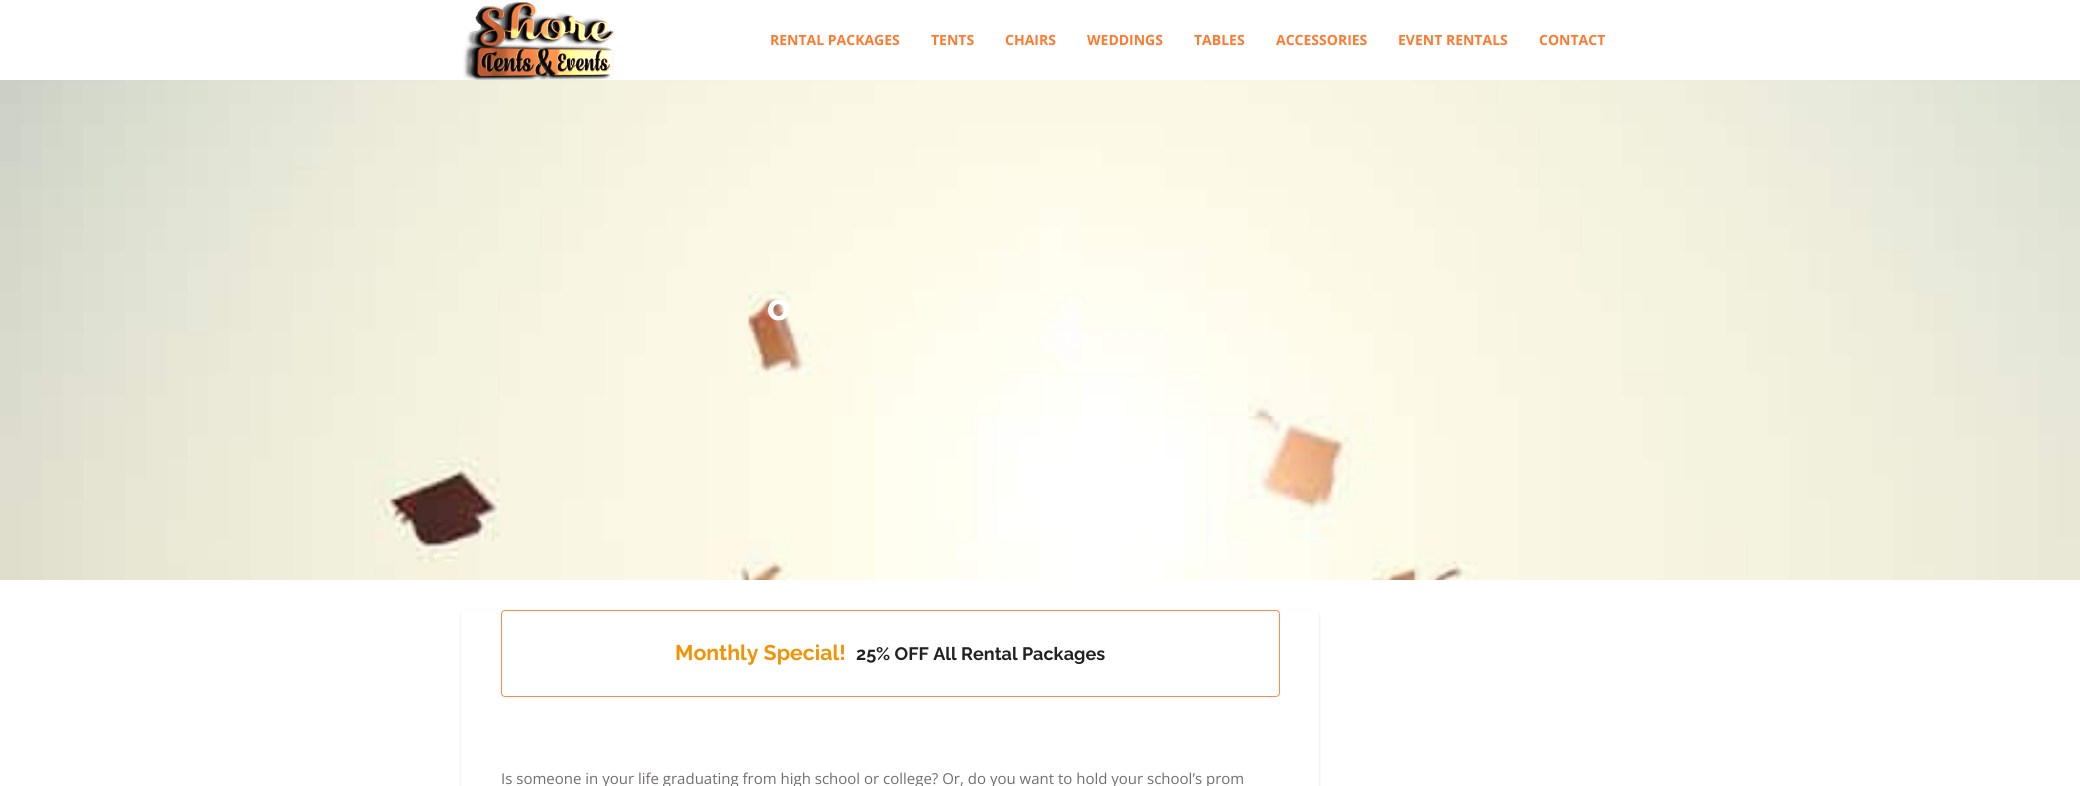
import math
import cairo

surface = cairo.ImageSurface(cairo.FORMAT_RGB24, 2080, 786)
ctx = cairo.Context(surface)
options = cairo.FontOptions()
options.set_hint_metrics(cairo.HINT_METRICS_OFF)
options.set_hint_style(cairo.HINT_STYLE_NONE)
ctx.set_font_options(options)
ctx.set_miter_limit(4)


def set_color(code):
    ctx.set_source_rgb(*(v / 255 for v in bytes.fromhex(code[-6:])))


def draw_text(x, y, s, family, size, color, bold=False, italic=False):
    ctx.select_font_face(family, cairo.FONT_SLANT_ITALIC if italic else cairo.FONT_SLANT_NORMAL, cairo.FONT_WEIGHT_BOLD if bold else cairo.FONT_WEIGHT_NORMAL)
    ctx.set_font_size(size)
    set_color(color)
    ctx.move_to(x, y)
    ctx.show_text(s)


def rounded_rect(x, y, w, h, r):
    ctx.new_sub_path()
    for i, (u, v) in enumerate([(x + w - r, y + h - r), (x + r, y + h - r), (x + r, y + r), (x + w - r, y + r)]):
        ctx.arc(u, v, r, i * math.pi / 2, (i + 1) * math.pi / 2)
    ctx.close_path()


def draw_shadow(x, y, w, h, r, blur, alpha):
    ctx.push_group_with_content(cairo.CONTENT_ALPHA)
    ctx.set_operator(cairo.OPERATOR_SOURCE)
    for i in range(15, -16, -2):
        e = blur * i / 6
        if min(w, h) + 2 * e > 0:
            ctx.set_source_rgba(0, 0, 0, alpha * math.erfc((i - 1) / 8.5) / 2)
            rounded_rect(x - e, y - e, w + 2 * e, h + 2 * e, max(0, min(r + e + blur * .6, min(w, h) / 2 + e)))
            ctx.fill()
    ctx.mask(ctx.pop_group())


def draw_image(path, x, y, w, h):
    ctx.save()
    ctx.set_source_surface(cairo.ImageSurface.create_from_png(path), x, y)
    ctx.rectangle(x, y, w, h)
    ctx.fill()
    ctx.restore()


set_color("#ffffff")
ctx.paint()
draw_image("assets/img1.png", 463, 2, 152, 78)
draw_text(770, 45, "RENTAL PACKAGES", "Open Sans", 14, "#ff792f", bold=True)
draw_text(931, 45, "TENTS", "Open Sans", 14, "#ff792f", bold=True)
draw_text(1005, 45, "CHAIRS", "Open Sans", 14, "#ff792f", bold=True)
draw_text(1087, 45, "WEDDINGS", "Open Sans", 14, "#ff792f", bold=True)
draw_text(1194, 45, "TABLES", "Open Sans", 14, "#ff792f", bold=True)
draw_text(1276, 45, "ACCESSORIES", "Open Sans", 14, "#ff792f", bold=True)
draw_text(1398, 45, "EVENT RENTALS", "Open Sans", 14, "#ff792f", bold=True)
draw_text(1539, 45, "CONTACT", "Open Sans", 14, "#ff792f", bold=True)
draw_image("assets/img2.png", 0, 80, 2080, 500)
draw_text(767, 320, "o", "Raleway", 38, "#ffffff", bold=True)
set_color("#000000")
draw_shadow(461, 611, 858, 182, 4, 1, 0.15)
set_color("#ffffff")
rounded_rect(461, 610, 858, 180, 4)
ctx.fill()
rounded_rect(501.5, 610.5, 778, 86, 3.5)
set_color("#fe8a47")
ctx.set_line_width(1)
ctx.stroke()
draw_text(675, 660, "Monthly Special!", "Raleway", 21.25, "#f29305", bold=True)
draw_text(856, 660, "25% OFF All Rental Packages", "Raleway", 18, "#242120", bold=True)
draw_text(501, 784, "Is someone in your life graduating from high school or college? Or, do you want to hold your school’s prom", "Open Sans", 15, "#716f6e")
surface.write_to_png("output.png")
